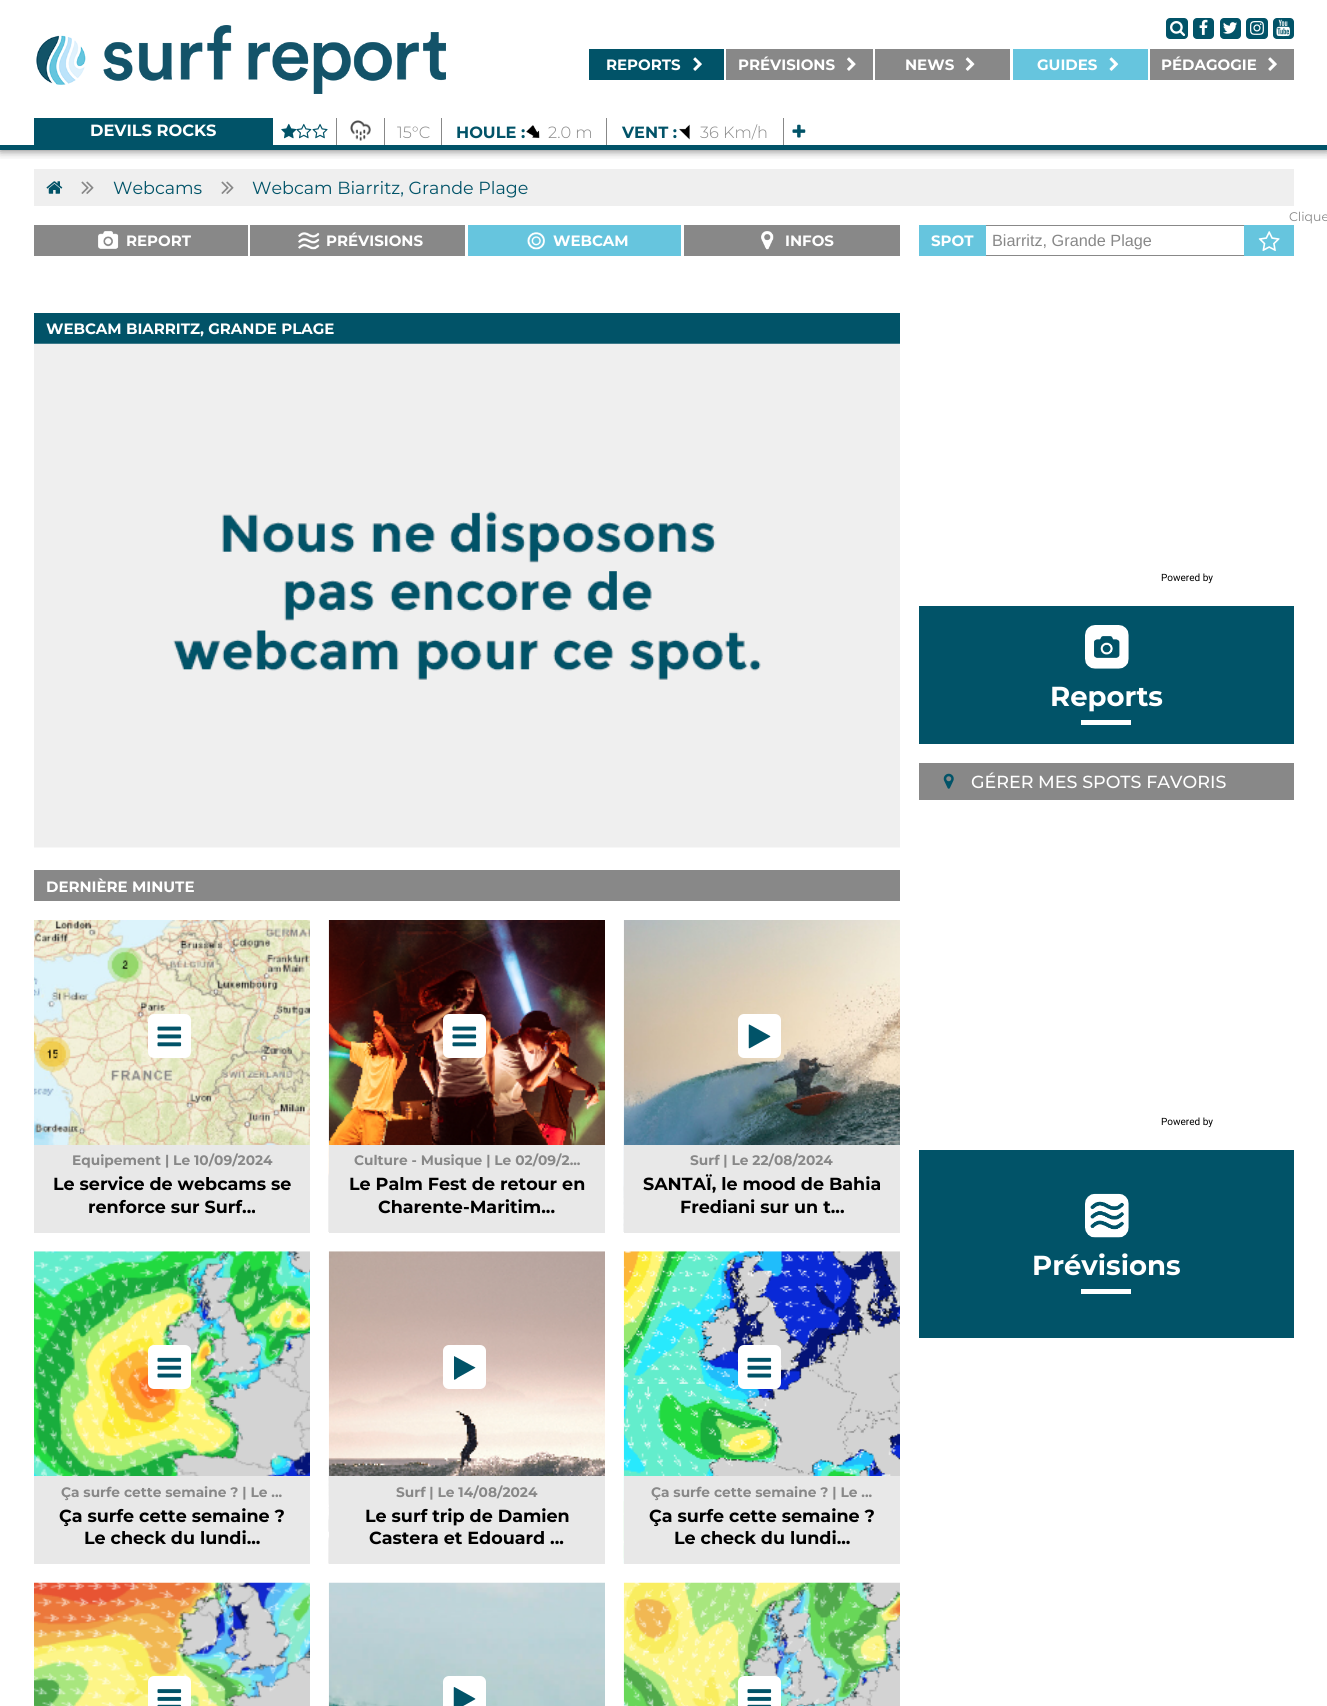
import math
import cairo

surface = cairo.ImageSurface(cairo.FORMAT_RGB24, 1327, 1706)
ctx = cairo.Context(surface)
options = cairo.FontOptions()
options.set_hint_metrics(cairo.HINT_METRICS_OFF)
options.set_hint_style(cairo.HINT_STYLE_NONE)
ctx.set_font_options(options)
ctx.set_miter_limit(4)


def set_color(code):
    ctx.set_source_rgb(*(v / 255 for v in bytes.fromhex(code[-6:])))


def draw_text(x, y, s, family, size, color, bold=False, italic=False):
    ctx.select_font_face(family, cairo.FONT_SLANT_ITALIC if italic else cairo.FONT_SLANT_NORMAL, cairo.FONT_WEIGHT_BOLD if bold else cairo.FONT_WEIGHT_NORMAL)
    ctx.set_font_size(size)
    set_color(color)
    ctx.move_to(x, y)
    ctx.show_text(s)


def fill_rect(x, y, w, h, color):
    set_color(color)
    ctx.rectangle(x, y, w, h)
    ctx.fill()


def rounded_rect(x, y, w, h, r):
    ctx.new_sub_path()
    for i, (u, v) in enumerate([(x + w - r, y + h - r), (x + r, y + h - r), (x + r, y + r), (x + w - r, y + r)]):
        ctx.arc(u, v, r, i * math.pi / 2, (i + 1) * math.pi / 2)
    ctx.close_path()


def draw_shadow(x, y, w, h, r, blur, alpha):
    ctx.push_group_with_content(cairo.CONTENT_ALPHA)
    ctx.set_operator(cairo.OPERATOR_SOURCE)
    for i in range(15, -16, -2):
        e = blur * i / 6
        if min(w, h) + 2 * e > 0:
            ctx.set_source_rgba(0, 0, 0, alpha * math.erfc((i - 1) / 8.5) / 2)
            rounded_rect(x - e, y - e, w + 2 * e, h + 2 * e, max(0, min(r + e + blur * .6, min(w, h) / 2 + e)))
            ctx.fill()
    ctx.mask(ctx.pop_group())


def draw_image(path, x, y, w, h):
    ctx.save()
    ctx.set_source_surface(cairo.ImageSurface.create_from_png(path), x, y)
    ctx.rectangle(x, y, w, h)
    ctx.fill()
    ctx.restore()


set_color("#ffffff")
ctx.paint()
ctx.save()
ctx.rectangle(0, 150, 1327, 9)
ctx.clip()
set_color("#000000")
draw_shadow(0, 0, 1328, 150, 0, 5, 0.6)
ctx.restore()
fill_rect(0, 145, 1327, 5, "#015368")
draw_image("assets/img1.png", 36, 25, 410, 69)
rounded_rect(1166, 18, 22, 21, 4)
ctx.fill()
draw_image("assets/img2.png", 1170, 21, 16, 15)
rounded_rect(1193, 18, 21, 21, 4)
ctx.fill()
draw_image("assets/img3.png", 1199, 19, 9, 16)
rounded_rect(1220, 18, 21, 21, 4)
ctx.fill()
draw_image("assets/img4.png", 1223, 22, 14, 12)
rounded_rect(1246, 18, 22, 21, 4)
ctx.fill()
draw_image("assets/img5.png", 1250, 21, 14, 14)
rounded_rect(1273, 18, 21, 21, 4)
ctx.fill()
draw_image("assets/img6.png", 1276, 19, 14, 18)
fill_rect(589, 49, 135, 31, "#015368")
draw_text(606, 70, "REPORTS", "Montserrat", 15, "#ffffff", bold=True)
draw_image("assets/img7.png", 693, 57, 9, 14)
fill_rect(726, 49, 147, 31, "#888888")
draw_text(738, 70, "PRÉVISIONS", "Montserrat", 15, "#ffffff", bold=True)
draw_image("assets/img8.png", 847, 57, 9, 14)
fill_rect(875, 49, 135, 31, "#888888")
draw_text(905, 70, "NEWS", "Montserrat", 15, "#ffffff", bold=True)
draw_image("assets/img9.png", 965, 57, 10, 14)
fill_rect(1013, 49, 135, 31, "#66c5de")
draw_text(1037, 70, "GUIDES", "Montserrat", 15, "#ffffff", bold=True)
draw_image("assets/img10.png", 1109, 57, 10, 14)
fill_rect(1150, 49, 144, 31, "#888888")
draw_text(1161, 70, "PÉDAGOGIE", "Montserrat", 15, "#ffffff", bold=True)
draw_image("assets/img11.png", 1268, 57, 9, 14)
fill_rect(34, 118, 239, 27, "#015368")
draw_text(90, 136, "DEVILS ROCKS", "Montserrat", 16.25, "#ffffff", bold=True)
fill_rect(336, 118, 1, 27, "#888888")
draw_image("assets/img12.png", 281, 123, 16, 16)
draw_image("assets/img13.png", 296, 123, 16, 16)
draw_image("assets/img14.png", 312, 123, 16, 16)
fill_rect(384, 118, 1, 27, "#888888")
draw_image("assets/img15.png", 350, 120, 21, 21)
fill_rect(441, 118, 1, 27, "#888888")
draw_text(397, 138, "15°C", "Montserrat Light", 16.25, "#888888")
fill_rect(606, 118, 1, 27, "#888888")
draw_text(456, 138, "HOULE :", "Montserrat", 16.25, "#015368", bold=True)
draw_image("assets/img16.png", 526, 125, 14, 14)
draw_text(548, 138, "2.0 m", "Montserrat Light", 16.25, "#888888")
fill_rect(783, 118, 1, 27, "#888888")
draw_text(622, 138, "VENT :", "Montserrat", 16.25, "#015368", bold=True)
draw_image("assets/img17.png", 679, 124, 11, 16)
draw_text(700, 138, "36 Km/h", "Montserrat Light", 16.25, "#888888")
draw_image("assets/img18.png", 792, 124, 14, 14)
fill_rect(34, 169, 1260, 37, "#efefef")
draw_image("assets/img19.png", 46, 181, 17, 13)
draw_image("assets/img20.png", 81, 181, 13, 13)
draw_text(113, 194, "Webcams", "Montserrat", 17.5, "#015368")
draw_image("assets/img20.png", 221, 181, 13, 13)
draw_text(252, 194, "Webcam Biarritz, Grande Plage", "Montserrat", 17.5, "#015368")
fill_rect(34, 225, 214, 31, "#888888")
draw_image("assets/img21.png", 98, 231, 21, 18)
draw_text(126, 246, "REPORT", "Montserrat", 15, "#ffffff", bold=True)
fill_rect(250, 225, 215, 31, "#888888")
draw_image("assets/img22.png", 298, 232, 22, 18)
draw_text(326, 246, "PRÉVISIONS", "Montserrat", 15, "#ffffff", bold=True)
fill_rect(468, 225, 213, 31, "#66c5de")
draw_image("assets/img23.png", 527, 232, 18, 18)
draw_text(553, 246, "WEBCAM", "Montserrat", 15, "#ffffff", bold=True)
fill_rect(684, 225, 216, 31, "#888888")
draw_image("assets/img24.png", 761, 231, 13, 19)
draw_text(785, 246, "INFOS", "Montserrat", 15, "#ffffff", bold=True)
fill_rect(34, 313, 866, 31, "#015368")
draw_text(46, 334, "WEBCAM BIARRITZ, GRANDE PLAGE", "Montserrat", 15, "#ffffff", bold=True)
draw_image("assets/img25.png", 34, 343, 866, 505)
fill_rect(34, 870, 866, 31, "#888888")
draw_text(46, 892, "DERNIÈRE MINUTE", "Montserrat", 15, "#ffffff", bold=True)
draw_image("assets/img26.png", 34, 920, 276, 225)
rounded_rect(148, 1014, 43, 44, 6)
ctx.fill()
draw_image("assets/img27.png", 157, 1026, 25, 21)
fill_rect(34, 1145, 276, 88, "#e8e8e8")
draw_text(72, 1165, "Equipement | Le 10/09/2024", "Montserrat", 13.75, "#888888", bold=True)
draw_text(53, 1190, "Le service de webcams se", "Montserrat", 17.5, "#000000", bold=True)
draw_text(88, 1213, "renforce sur Surf...", "Montserrat", 17.5, "#000000", bold=True)
draw_image("assets/img28.png", 328, 920, 277, 312)
set_color("#ffffff")
rounded_rect(443, 1014, 43, 44, 6)
ctx.fill()
draw_image("assets/img27.png", 452, 1026, 25, 21)
fill_rect(329, 1145, 276, 88, "#e8e8e8")
draw_text(354, 1165, "Culture - Musique | Le 02/09/2...", "Montserrat", 13.75, "#888888", bold=True)
draw_text(349, 1190, "Le Palm Fest de retour en", "Montserrat", 17.5, "#000000", bold=True)
draw_text(378, 1213, "Charente-Maritim...", "Montserrat", 17.5, "#000000", bold=True)
draw_image("assets/img29.png", 623, 920, 277, 312)
set_color("#ffffff")
rounded_rect(738, 1014, 43, 44, 6)
ctx.fill()
draw_image("assets/img30.png", 748, 1024, 23, 25)
fill_rect(624, 1145, 276, 88, "#e8e8e8")
draw_text(690, 1165, "Surf | Le 22/08/2024", "Montserrat", 13.75, "#888888", bold=True)
draw_text(643, 1190, "SANTAÏ, le mood de Bahia", "Montserrat", 17.5, "#000000", bold=True)
draw_text(680, 1213, "Frediani sur un t...", "Montserrat", 17.5, "#000000", bold=True)
draw_image("assets/img31.png", 34, 1251, 276, 225)
set_color("#ffffff")
rounded_rect(148, 1345, 43, 44, 6)
ctx.fill()
draw_image("assets/img32.png", 157, 1357, 25, 21)
fill_rect(34, 1476, 276, 88, "#e8e8e8")
draw_text(61, 1497, "Ça surfe cette semaine ? | Le ...", "Montserrat", 13.75, "#888888", bold=True)
draw_text(59, 1522, "Ça surfe cette semaine ?", "Montserrat", 17.5, "#000000", bold=True)
draw_text(84, 1544, "Le check du lundi...", "Montserrat", 17.5, "#000000", bold=True)
draw_image("assets/img33.png", 328, 1251, 277, 313)
set_color("#ffffff")
rounded_rect(443, 1345, 43, 44, 6)
ctx.fill()
set_color("#015368")
ctx.new_path()
ctx.move_to(475, 1368)
ctx.line_to(458, 1377.5)
ctx.curve_to(457.5, 1378, 454.5, 1380.5, 454, 1379.5)
ctx.line_to(454, 1356)
ctx.line_to(471.5, 1365.5)
ctx.line_to(475.5, 1367.5)
ctx.close_path()
ctx.fill()
fill_rect(329, 1476, 276, 88, "#e8e8e8")
draw_text(396, 1497, "Surf | Le 14/08/2024", "Montserrat", 13.75, "#888888", bold=True)
draw_text(365, 1522, "Le surf trip de Damien", "Montserrat", 17.5, "#000000", bold=True)
draw_text(369, 1544, "Castera et Edouard ...", "Montserrat", 17.5, "#000000", bold=True)
draw_image("assets/img34.png", 623, 1251, 277, 313)
set_color("#ffffff")
rounded_rect(738, 1345, 43, 44, 6)
ctx.fill()
draw_image("assets/img32.png", 747, 1357, 25, 21)
fill_rect(624, 1476, 276, 88, "#e8e8e8")
draw_text(651, 1497, "Ça surfe cette semaine ? | Le ...", "Montserrat", 13.75, "#888888", bold=True)
draw_text(649, 1522, "Ça surfe cette semaine ?", "Montserrat", 17.5, "#000000", bold=True)
draw_text(674, 1544, "Le check du lundi...", "Montserrat", 17.5, "#000000", bold=True)
draw_image("assets/img35.png", 34, 1582, 276, 124)
set_color("#ffffff")
rounded_rect(148, 1676, 43, 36, 6)
ctx.fill()
draw_image("assets/img36.png", 157, 1689, 25, 17)
draw_image("assets/img37.png", 328, 1582, 277, 124)
rounded_rect(443, 1676, 43, 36, 6)
ctx.fill()
draw_image("assets/img38.png", 453, 1687, 23, 19)
draw_image("assets/img39.png", 623, 1582, 277, 124)
rounded_rect(738, 1676, 43, 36, 6)
ctx.fill()
draw_image("assets/img36.png", 747, 1689, 25, 17)
draw_text(1289, 221, "Clique", "Montserrat", 12.5, "#888888")
fill_rect(919, 225, 67, 31, "#66c5de")
draw_text(931, 246, "SPOT", "Montserrat", 15, "#ffffff", bold=True)
fill_rect(986, 225, 258, 1, "#888888")
fill_rect(986, 255, 258, 1, "#888888")
draw_text(992, 246, "Biarritz, Grande Plage", "Liberation Sans", 16.25, "#888888")
fill_rect(1244, 225, 50, 31, "#66c5de")
draw_image("assets/img40.png", 1258, 231, 22, 20)
draw_text(1161, 581, "Powered by", "Roboto", 10, "#000000")
fill_rect(919, 606, 375, 138, "#015368")
draw_image("assets/img41.png", 1085, 625, 44, 44)
draw_text(1050, 706, "Reports", "Montserrat", 27.5, "#ffffff", bold=True)
fill_rect(1081, 720, 50, 5, "#ffffff")
fill_rect(919, 763, 375, 37, "#888888")
draw_image("assets/img42.png", 943, 773, 11, 16)
draw_text(971, 788, "GÉRER MES SPOTS FAVORIS", "Montserrat Medium", 17.5, "#ffffff")
draw_text(1161, 1125, "Powered by", "Roboto", 10, "#000000")
fill_rect(919, 1150, 375, 188, "#015368")
draw_image("assets/img43.png", 1085, 1193, 44, 45)
draw_text(1032, 1275, "Prévisions", "Montserrat", 27.5, "#ffffff", bold=True)
fill_rect(1081, 1289, 50, 5, "#ffffff")
surface.write_to_png("output.png")
